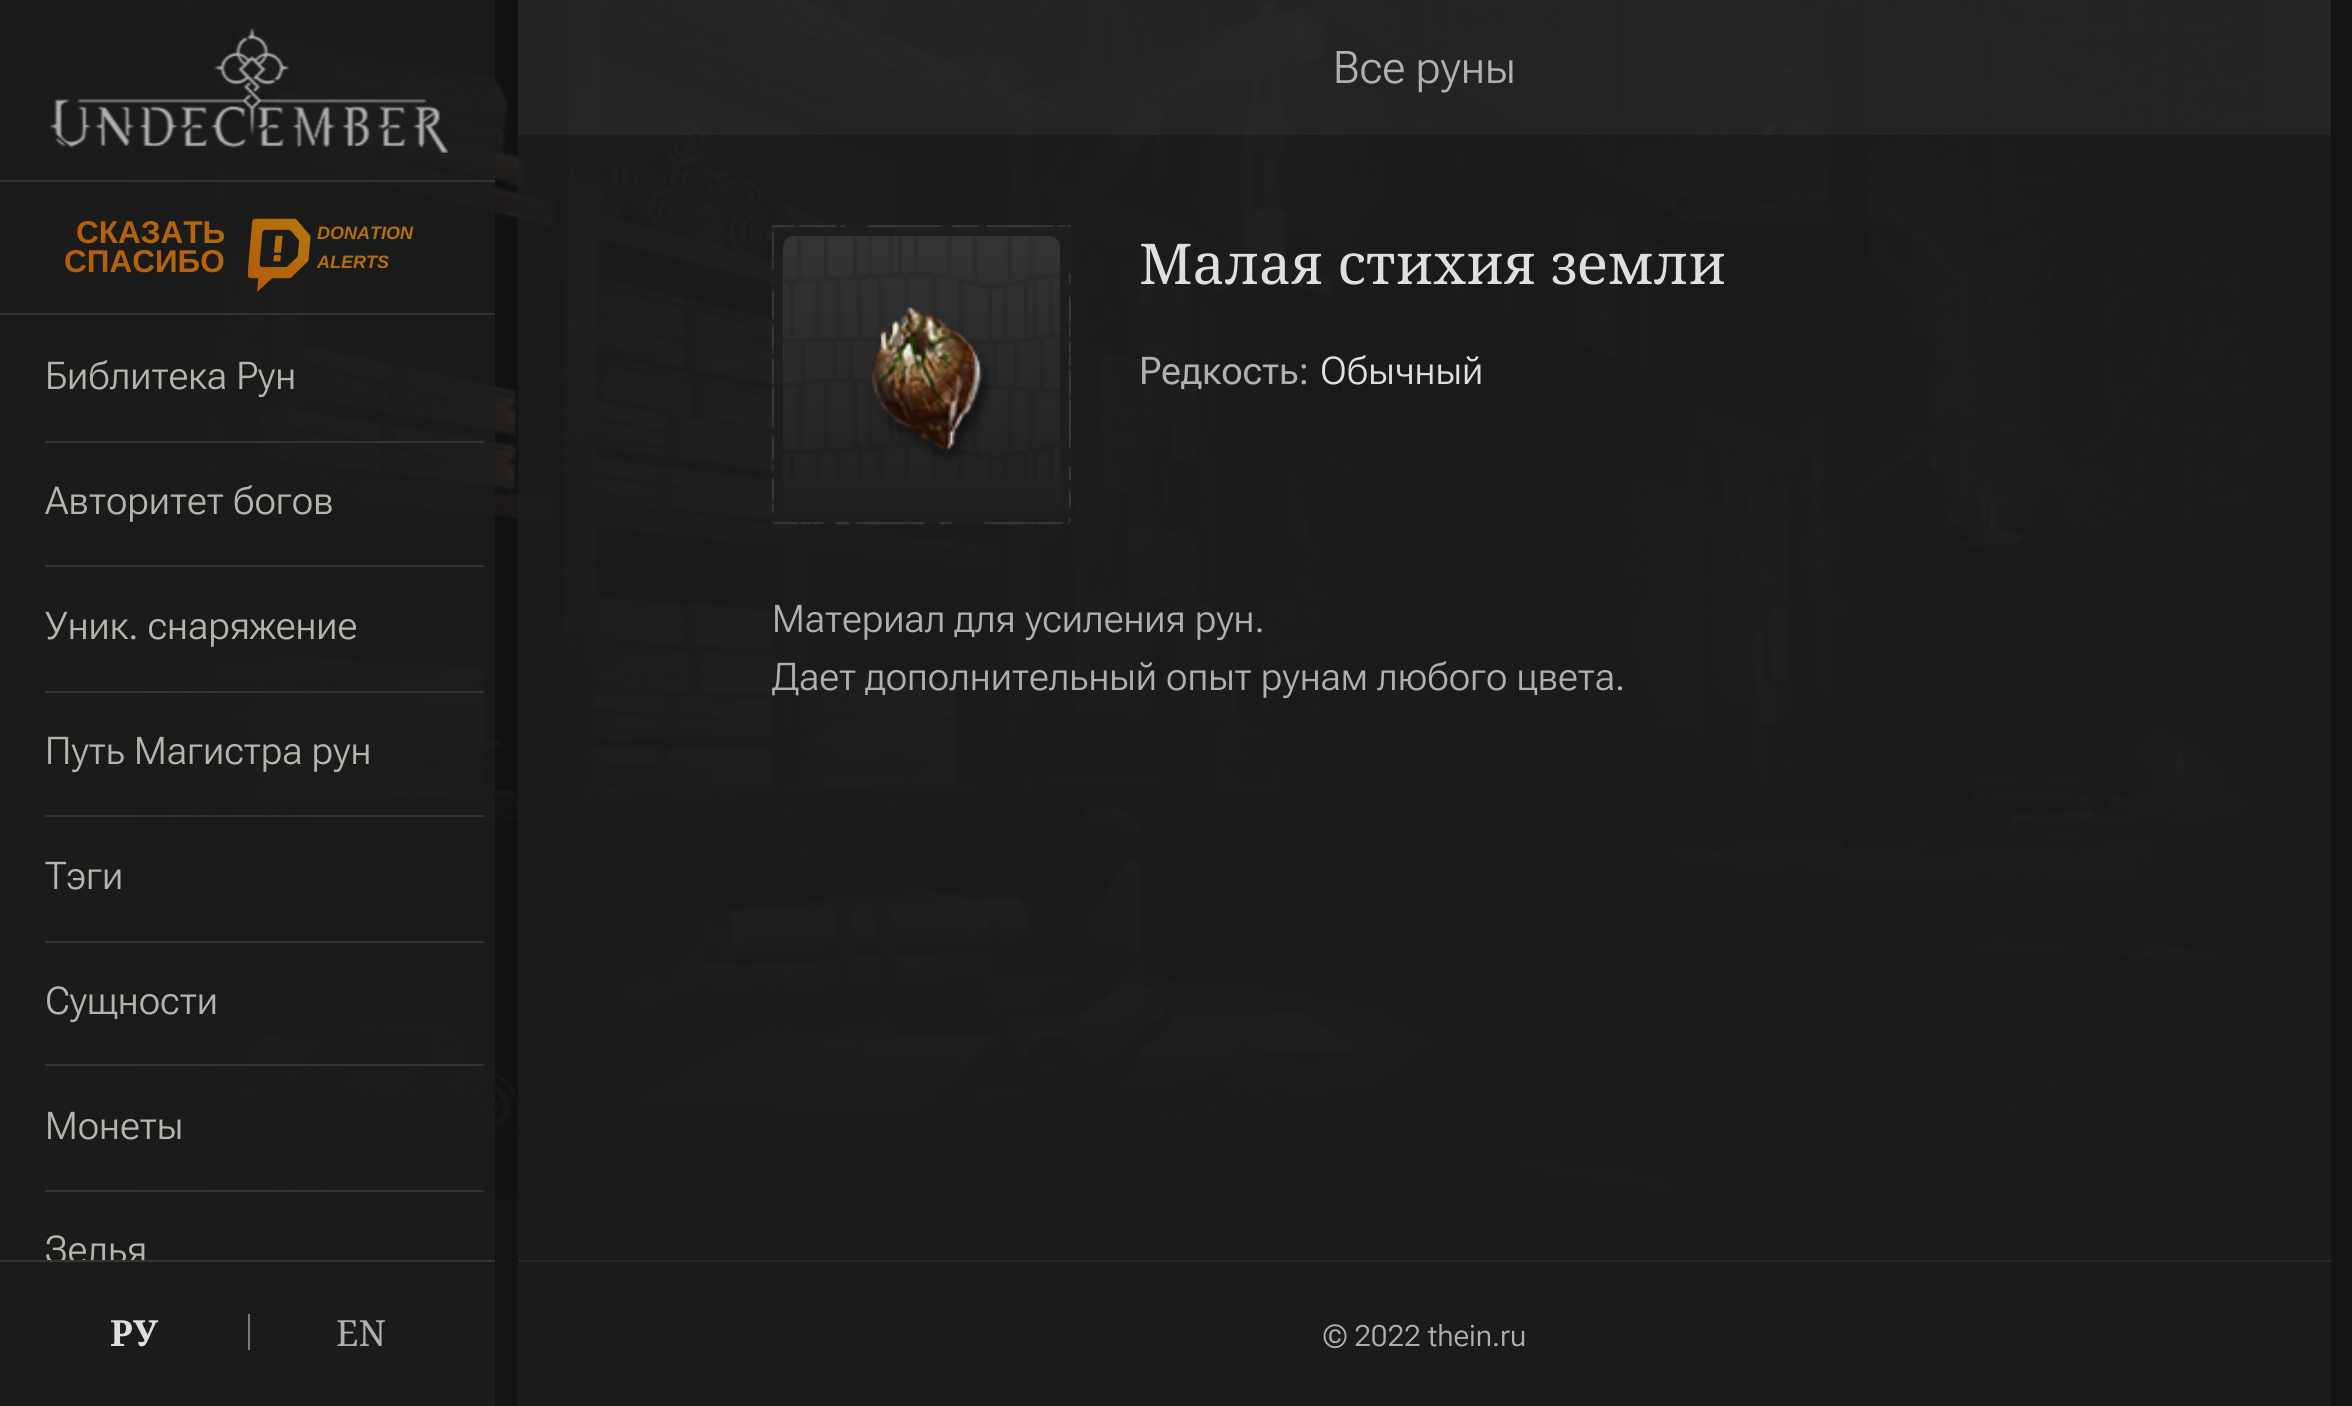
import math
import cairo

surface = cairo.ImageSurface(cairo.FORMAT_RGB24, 2352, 1406)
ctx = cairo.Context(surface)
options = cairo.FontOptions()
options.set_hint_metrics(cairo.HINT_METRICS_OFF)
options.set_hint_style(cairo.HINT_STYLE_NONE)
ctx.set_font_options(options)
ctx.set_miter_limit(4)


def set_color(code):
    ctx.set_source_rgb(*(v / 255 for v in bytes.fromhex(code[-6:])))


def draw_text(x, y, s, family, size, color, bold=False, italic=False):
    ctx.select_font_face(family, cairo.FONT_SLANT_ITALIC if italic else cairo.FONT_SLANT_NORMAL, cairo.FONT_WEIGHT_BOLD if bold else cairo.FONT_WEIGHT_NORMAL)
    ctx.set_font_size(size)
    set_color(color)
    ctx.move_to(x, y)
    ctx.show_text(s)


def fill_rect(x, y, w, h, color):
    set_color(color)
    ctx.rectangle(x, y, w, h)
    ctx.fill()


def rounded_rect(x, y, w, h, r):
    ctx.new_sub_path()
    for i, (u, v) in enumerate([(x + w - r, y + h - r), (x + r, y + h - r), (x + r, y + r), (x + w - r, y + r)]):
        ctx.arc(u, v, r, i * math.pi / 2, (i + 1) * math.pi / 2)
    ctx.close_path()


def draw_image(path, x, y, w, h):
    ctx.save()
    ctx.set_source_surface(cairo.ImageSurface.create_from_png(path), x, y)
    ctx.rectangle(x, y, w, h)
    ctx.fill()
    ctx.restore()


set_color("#131313")
ctx.paint()
draw_image("assets/img1.png", 134, 0, 2132, 1198)
ctx.set_source_rgba(0.118, 0.118, 0.118, 0.75)
ctx.rectangle(0, 0, 495, 1406)
ctx.fill()
fill_rect(0, 180, 495, 2, "#37322d")
ctx.select_font_face("Liberation Sans", cairo.FONT_SLANT_NORMAL, cairo.FONT_WEIGHT_BOLD)
ctx.set_font_size(31.5)
gradient = cairo.LinearGradient(499, 228, -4, 272)
gradient.add_color_stop_rgba(0, 0.706, 0.459, 0.051, 1)
gradient.add_color_stop_rgba(1, 0.706, 0.353, 0.051, 1)
ctx.set_source(gradient)
ctx.move_to(76, 243)
ctx.show_text("СКАЗАТЬ")
ctx.move_to(64, 272)
ctx.show_text("СПАСИБО")
draw_image("assets/img2.png", 248, 218, 63, 74)
ctx.select_font_face("Liberation Sans", cairo.FONT_SLANT_ITALIC, cairo.FONT_WEIGHT_BOLD)
ctx.set_font_size(18)
ctx.move_to(317, 239)
ctx.show_text("DONATION")
ctx.move_to(317, 268)
ctx.show_text("ALERTS")
ctx.set_source_rgba(0.118, 0.118, 0.118, 0.75)
ctx.rectangle(518, 0, 1813, 1406)
ctx.fill()
ctx.set_source_rgba(1, 1, 1, 0.04)
ctx.rectangle(518, 0, 1813, 135)
ctx.fill()
draw_text(1333, 83, "Все руны", "Roboto Flex Light", 45, "#b0b0b0")
fill_rect(772, 225, 299, 299, "#1e1e1e")
draw_image("assets/img3.png", 771, 225, 300, 300)
gradient = cairo.LinearGradient(921, 236, 921, 513)
gradient.add_color_stop_rgba(0, 0.204, 0.204, 0.204, 1)
gradient.add_color_stop_rgba(1, 0.125, 0.125, 0.125, 1)
ctx.set_source(gradient)
rounded_rect(783, 236, 277, 277, 11)
ctx.fill()
draw_image("assets/img4.png", 783, 236, 277, 242)
draw_image("assets/img5.png", 872, 307, 120, 155)
draw_text(1139, 284, "Малая стихия земли", "Noto Serif", 56.25, "#dfdfdf")
draw_text(1139, 384, "Редкость:", "Roboto Flex", 38.25, "#b0b0b0")
draw_text(1320, 384, "Обычный", "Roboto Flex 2 Light", 38.25, "#dfdfdf")
draw_text(772, 632, "Материал для усиления рун.", "Roboto Flex 2 Light", 38.25, "#b0b0b0")
draw_text(772, 690, "Дает дополнительный опыт рунам любого цвета.", "Roboto Flex 2 Light", 38.25, "#b0b0b0")
fill_rect(518, 1260, 1813, 2, "#272727")
draw_text(1323, 1346, "© 2022 thein.ru", "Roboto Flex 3 Light", 29.25, "#b0b0b0")
fill_rect(0, 313, 495, 2, "#37322d")
draw_image("assets/img6.png", 49, 27, 399, 126)
fill_rect(0, 1260, 495, 2, "#37322d")
draw_text(45, 389, "Библитека Рун", "Roboto Flex 2 Light", 38.25, "#b6b4ac")
fill_rect(45, 441, 439, 2, "#37322d")
draw_text(45, 514, "Авторитет богов", "Roboto Flex 2 Light", 38.25, "#b6b4ac")
fill_rect(45, 565, 439, 2, "#37322d")
draw_text(45, 639, "Уник. снаряжение", "Roboto Flex 2 Light", 38.25, "#b6b4ac")
fill_rect(45, 691, 439, 2, "#37322d")
draw_text(45, 764, "Путь Магистра рун", "Roboto Flex 2 Light", 38.25, "#b6b4ac")
fill_rect(45, 815, 439, 2, "#37322d")
draw_text(45, 889, "Тэги", "Roboto Flex 2 Light", 38.25, "#b6b4ac")
fill_rect(45, 941, 439, 2, "#37322d")
draw_text(45, 1014, "Сущности", "Roboto Flex 2 Light", 38.25, "#b6b4ac")
fill_rect(45, 1064, 439, 2, "#37322d")
draw_text(45, 1139, "Монеты", "Roboto Flex 2 Light", 38.25, "#b6b4ac")
fill_rect(45, 1190, 439, 2, "#37322d")
ctx.save()
ctx.rectangle(0, 315, 495, 945)
ctx.clip()
draw_text(45, 1263, "Зелья", "Roboto Flex 2 Light", 38.25, "#b6b4ac")
ctx.restore()
draw_text(110, 1346, "РУ", "Noto Serif", 36, "#dfdfdf", bold=True)
fill_rect(248, 1314, 2, 36, "#7c7c7c")
draw_text(336, 1346, "EN", "Noto Serif", 36, "#b0b0b0")
surface.write_to_png("output.png")
